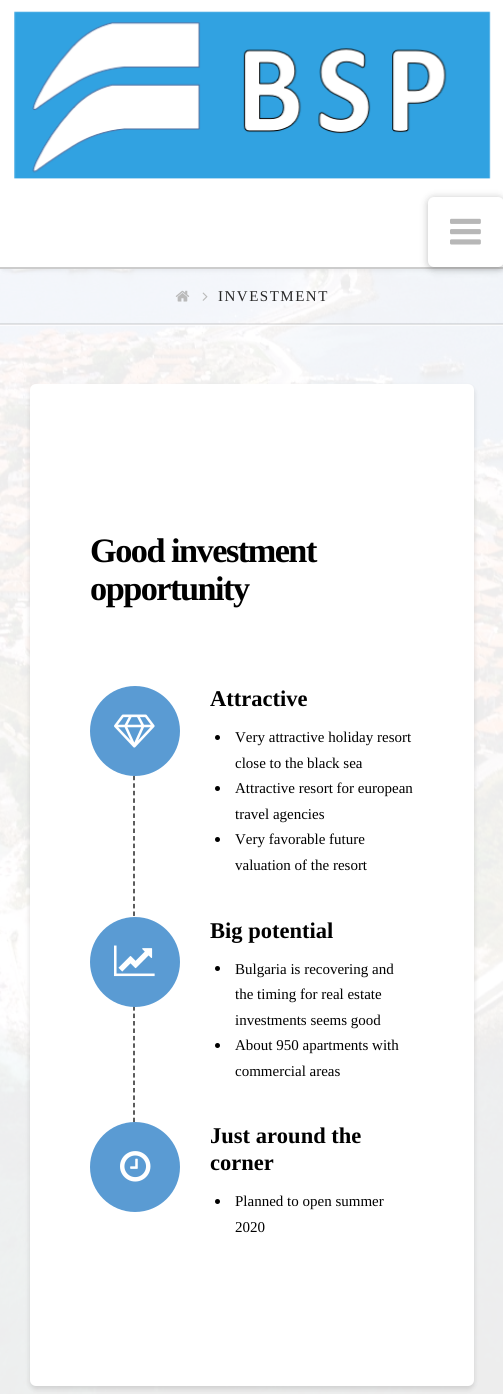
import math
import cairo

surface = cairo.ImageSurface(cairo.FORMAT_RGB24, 503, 1394)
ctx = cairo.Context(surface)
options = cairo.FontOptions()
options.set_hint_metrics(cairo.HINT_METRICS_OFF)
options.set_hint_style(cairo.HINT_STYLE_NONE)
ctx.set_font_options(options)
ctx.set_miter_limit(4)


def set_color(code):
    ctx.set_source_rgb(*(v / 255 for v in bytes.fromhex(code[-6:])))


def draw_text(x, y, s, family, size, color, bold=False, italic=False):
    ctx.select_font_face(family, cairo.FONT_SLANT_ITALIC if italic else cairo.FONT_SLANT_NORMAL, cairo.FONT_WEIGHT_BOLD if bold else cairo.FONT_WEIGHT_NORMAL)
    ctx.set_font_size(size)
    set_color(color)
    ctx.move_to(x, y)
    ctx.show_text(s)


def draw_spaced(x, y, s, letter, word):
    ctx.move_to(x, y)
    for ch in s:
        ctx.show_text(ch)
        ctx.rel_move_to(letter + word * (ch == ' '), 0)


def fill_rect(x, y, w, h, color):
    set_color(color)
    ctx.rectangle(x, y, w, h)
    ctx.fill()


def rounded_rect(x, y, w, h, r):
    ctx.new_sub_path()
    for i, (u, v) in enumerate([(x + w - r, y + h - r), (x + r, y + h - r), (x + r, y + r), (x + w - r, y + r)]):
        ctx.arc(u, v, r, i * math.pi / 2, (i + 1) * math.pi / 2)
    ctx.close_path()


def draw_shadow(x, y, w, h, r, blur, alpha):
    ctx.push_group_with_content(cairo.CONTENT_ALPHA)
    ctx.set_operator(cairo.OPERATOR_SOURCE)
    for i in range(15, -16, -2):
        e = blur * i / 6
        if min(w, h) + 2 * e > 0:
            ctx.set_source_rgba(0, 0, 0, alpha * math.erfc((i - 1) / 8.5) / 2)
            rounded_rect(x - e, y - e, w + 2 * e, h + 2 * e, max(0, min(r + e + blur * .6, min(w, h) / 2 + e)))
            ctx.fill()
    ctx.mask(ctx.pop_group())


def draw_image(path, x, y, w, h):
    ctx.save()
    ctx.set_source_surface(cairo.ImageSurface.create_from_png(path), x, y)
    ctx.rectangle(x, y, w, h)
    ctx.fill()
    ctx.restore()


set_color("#ffffff")
ctx.paint()
draw_image("assets/img1.png", 0, 269, 503, 1125)
set_color("#000000")
draw_shadow(3, 0, 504, 269, 0, 3, 0.1)
fill_rect(0, 0, 503, 267, "#ffffff")
fill_rect(0, 267, 503, 2, "#cccccc")
draw_image("assets/img2.png", 14, 11, 477, 168)
set_color("#000000")
draw_shadow(428, 198, 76, 71, 6, 4, 0.25)
set_color("#ffffff")
rounded_rect(428, 197, 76, 70, 6)
ctx.fill()
draw_image("assets/img3.png", 450, 218, 31, 27)
ctx.set_source_rgba(1, 1, 1, 0.71)
ctx.rectangle(0, 324, 503, 2)
ctx.fill()
ctx.set_source_rgba(0, 0, 0, 0.1)
ctx.rectangle(0, 323, 503, 2)
ctx.fill()
draw_image("assets/img4.png", 175, 290, 15, 12)
draw_image("assets/img5.png", 202, 292, 6, 9)
ctx.select_font_face("Liberation Serif")
ctx.set_font_size(15)
set_color("#272727")
draw_spaced(218, 301, "INVESTMENT", 1.5, 0)
set_color("#000000")
draw_shadow(30, 387, 444, 1002, 6, 2.5, 0.13)
set_color("#ffffff")
rounded_rect(30, 384, 444, 1002, 6)
ctx.fill()
ctx.select_font_face("Liberation Serif", cairo.FONT_SLANT_NORMAL, cairo.FONT_WEIGHT_BOLD)
ctx.set_font_size(34.25)
set_color("#000000")
draw_spaced(90, 562, "Good investment", -1.5, 0)
draw_spaced(90, 600, "opportunity", -1.5, 0)
ctx.new_path()
ctx.move_to(134, 730.5)
ctx.line_to(134, 961.5)
set_color("#272727")
ctx.set_line_width(1.5)
ctx.set_dash([4.5, 3.04])
ctx.stroke()
set_color("#5a9bd3")
ctx.arc(135, 731, 45, 0, 2 * math.pi)
ctx.fill()
draw_image("assets/img6.png", 114, 714, 41, 34)
draw_text(210, 706, "Attractive", "Liberation Serif", 22.5, "#000000", bold=True)
ctx.new_path()
ctx.arc(217.5, 737.5, 2.5, 0, 2 * math.pi)
ctx.fill()
draw_text(235, 742, "Very attractive holiday resort", "Liberation Serif", 15, "#000000")
draw_text(235, 768, "close to the black sea", "Liberation Serif", 15, "#000000")
ctx.new_path()
ctx.arc(217.5, 788.5, 2.5, 0, 2 * math.pi)
ctx.fill()
draw_text(235, 793, "Attractive resort for european", "Liberation Serif", 15, "#000000")
draw_text(235, 819, "travel agencies", "Liberation Serif", 15, "#000000")
ctx.new_path()
ctx.arc(217.5, 839.5, 2.5, 0, 2 * math.pi)
ctx.fill()
draw_text(235, 844, "Very favorable future", "Liberation Serif", 15, "#000000")
draw_text(235, 870, "valuation of the resort", "Liberation Serif", 15, "#000000")
ctx.new_path()
ctx.move_to(134, 961.5)
ctx.line_to(134, 1167)
set_color("#272727")
ctx.set_dash([4.5, 2.94])
ctx.stroke()
set_color("#5a9bd3")
ctx.arc(135, 962, 45, 0, 2 * math.pi)
ctx.fill()
draw_image("assets/img7.png", 114, 945, 41, 32)
draw_text(210, 938, "Big potential", "Liberation Serif", 22.5, "#000000", bold=True)
ctx.new_path()
ctx.arc(217.5, 968.5, 2.5, 0, 2 * math.pi)
ctx.fill()
draw_text(235, 974, "Bulgaria is recovering and", "Liberation Serif", 15, "#000000")
draw_text(235, 999, "the timing for real estate", "Liberation Serif", 15, "#000000")
draw_text(235, 1025, "investments seems good", "Liberation Serif", 15, "#000000")
ctx.new_path()
ctx.arc(217.5, 1045.5, 2.5, 0, 2 * math.pi)
ctx.fill()
draw_text(235, 1050, "About 950 apartments with", "Liberation Serif", 15, "#000000")
draw_text(235, 1076, "commercial areas", "Liberation Serif", 15, "#000000")
set_color("#5a9bd3")
ctx.new_path()
ctx.arc(135, 1167, 45, 0, 2 * math.pi)
ctx.fill()
draw_image("assets/img8.png", 120, 1151, 31, 31)
draw_text(210, 1143, "Just around the", "Liberation Serif", 22.5, "#000000", bold=True)
draw_text(210, 1170, "corner", "Liberation Serif", 22.5, "#000000", bold=True)
ctx.new_path()
ctx.arc(217.5, 1201.5, 2.5, 0, 2 * math.pi)
ctx.fill()
draw_text(235, 1206, "Planned to open summer", "Liberation Serif", 15, "#000000")
draw_text(235, 1232, "2020", "Liberation Serif", 15, "#000000")
surface.write_to_png("output.png")
